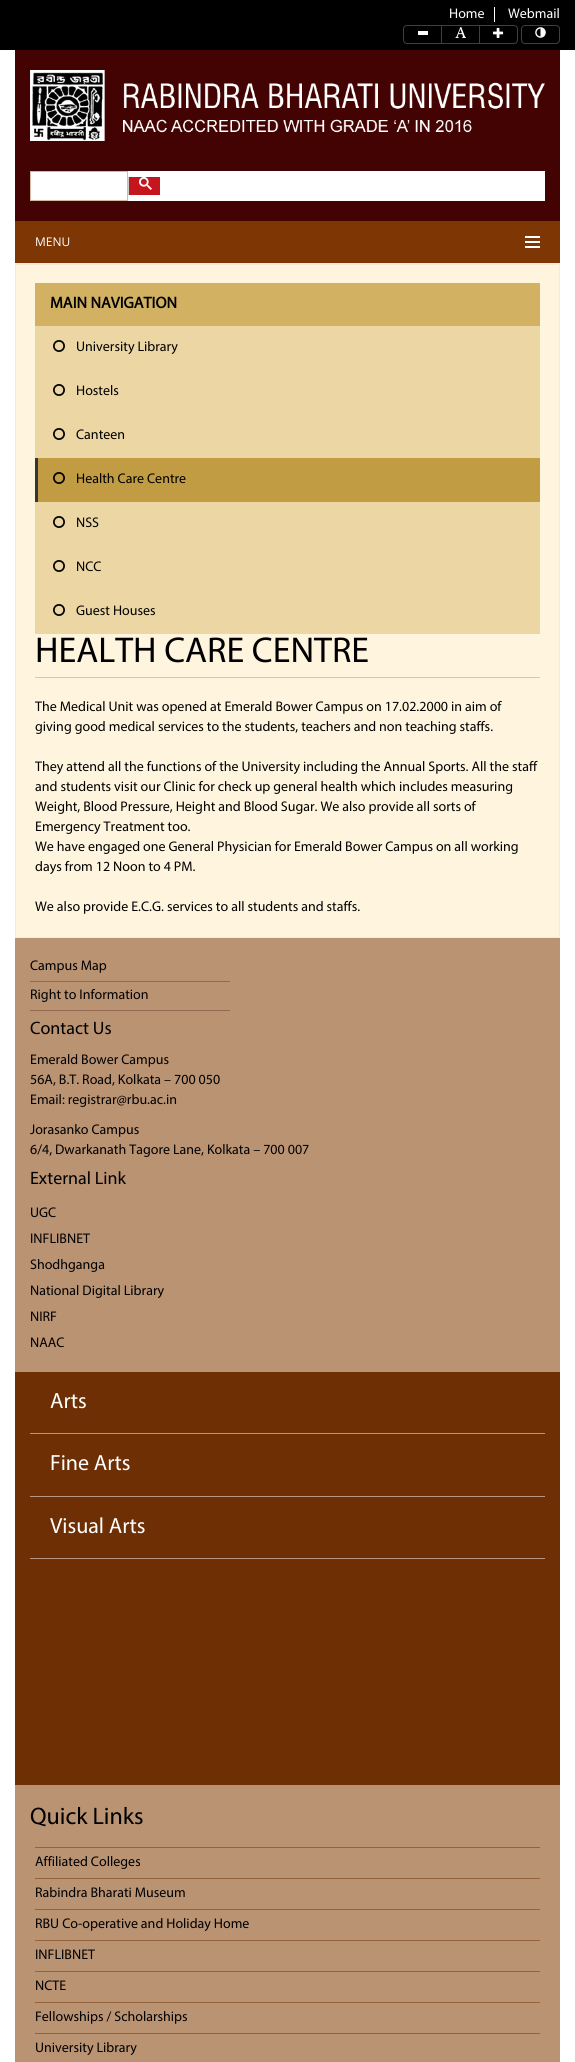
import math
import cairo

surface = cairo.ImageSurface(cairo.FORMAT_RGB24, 575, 2062)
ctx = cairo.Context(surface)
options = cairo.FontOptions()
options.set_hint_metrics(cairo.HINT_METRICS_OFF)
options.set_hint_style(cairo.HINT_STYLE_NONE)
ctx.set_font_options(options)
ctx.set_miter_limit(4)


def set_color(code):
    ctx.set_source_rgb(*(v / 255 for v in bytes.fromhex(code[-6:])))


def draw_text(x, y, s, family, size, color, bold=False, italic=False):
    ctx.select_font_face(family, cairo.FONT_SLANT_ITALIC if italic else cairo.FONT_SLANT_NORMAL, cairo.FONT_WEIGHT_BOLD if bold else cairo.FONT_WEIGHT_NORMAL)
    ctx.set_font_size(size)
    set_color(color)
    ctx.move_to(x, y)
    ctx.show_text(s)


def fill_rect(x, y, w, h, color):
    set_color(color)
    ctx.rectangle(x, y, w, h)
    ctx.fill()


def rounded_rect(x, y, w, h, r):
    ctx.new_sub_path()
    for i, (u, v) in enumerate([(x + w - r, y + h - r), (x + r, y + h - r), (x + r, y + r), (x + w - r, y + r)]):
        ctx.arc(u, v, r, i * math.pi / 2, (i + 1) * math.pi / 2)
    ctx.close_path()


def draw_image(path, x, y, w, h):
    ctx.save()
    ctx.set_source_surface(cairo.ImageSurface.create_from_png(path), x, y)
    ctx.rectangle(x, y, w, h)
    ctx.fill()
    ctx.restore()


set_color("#ffffff")
ctx.paint()
fill_rect(0, 0, 575, 50, "#000000")
draw_text(449, 18, "Home", "Myriad", 14, "#ffffff")
fill_rect(494, 7, 1, 15, "#ffffff")
draw_text(508, 18, "Webmail", "Myriad", 14, "#ffffff")
ctx.new_path()
ctx.move_to(407, 25.5)
ctx.line_to(441.5, 25.5)
ctx.line_to(441.5, 43.5)
ctx.line_to(407, 43.5)
ctx.curve_to(405, 43.5, 403.5, 42, 403.5, 40)
ctx.line_to(403.5, 29)
ctx.curve_to(403.5, 27, 405, 25.5, 407, 25.5)
ctx.close_path()
set_color("#403f3f")
ctx.set_line_width(1)
ctx.stroke()
fill_rect(418, 31, 10, 4, "#ffffff")
ctx.rectangle(441.5, 25.5, 38, 18)
set_color("#403f3f")
ctx.stroke()
draw_image("assets/img1.png", 455, 27, 11, 11)
ctx.new_path()
ctx.move_to(479.5, 25.5)
ctx.line_to(514, 25.5)
ctx.curve_to(516, 25.5, 517.5, 27, 517.5, 29)
ctx.line_to(517.5, 40)
ctx.curve_to(517.5, 42, 516, 43.5, 514, 43.5)
ctx.line_to(479.5, 43.5)
ctx.close_path()
ctx.stroke()
draw_image("assets/img2.png", 493, 27, 11, 11)
rounded_rect(521.5, 25.5, 38, 18, 3.5)
ctx.stroke()
draw_image("assets/img3.png", 535, 27, 11, 11)
fill_rect(15, 50, 545, 171, "#440303")
draw_image("assets/img4.png", 30, 70, 515, 71)
fill_rect(31, 171, 514, 30, "#ffffff")
ctx.rectangle(30.5, 171.5, 97, 29)
set_color("#d3bca1")
ctx.stroke()
fill_rect(129, 177, 31, 18, "#c4161c")
fill_rect(128, 177, 1, 18, "#cccccc")
draw_image("assets/img5.png", 139, 177, 13, 13)
fill_rect(15, 221, 545, 42, "#7e3604")
draw_text(35, 246, "MENU", "Open Sans", 12, "#ffffff")
fill_rect(525, 236, 15, 2, "#ffffff")
fill_rect(525, 241, 15, 2, "#ffffff")
fill_rect(525, 246, 15, 2, "#ffffff")
fill_rect(16, 265, 543, 672, "#fff5de")
fill_rect(16, 264, 543, 1, "#f2e9d3")
ctx.rectangle(15.5, 263.5, 544, 674)
set_color("#f5ead2")
ctx.stroke()
fill_rect(35, 326, 505, 308, "#ecd7a4")
fill_rect(35, 283, 505, 43, "#d2b163")
draw_text(50, 308, "MAIN NAVIGATION", "Myriad", 16, "#000000", bold=True)
draw_image("assets/img6.png", 53, 340, 12, 12)
draw_text(76, 351, "University Library", "Myriad", 14, "#000000")
draw_image("assets/img6.png", 53, 384, 12, 12)
draw_text(76, 395, "Hostels", "Myriad", 14, "#000000")
draw_image("assets/img6.png", 53, 428, 12, 12)
draw_text(76, 439, "Canteen", "Myriad", 14, "#000000")
fill_rect(38, 458, 502, 44, "#c19c43")
fill_rect(35, 458, 3, 44, "#353535")
draw_image("assets/img7.png", 53, 472, 12, 12)
draw_text(76, 483, "Health Care Centre", "Myriad", 14, "#000000")
draw_image("assets/img6.png", 53, 516, 12, 12)
draw_text(76, 527, "NSS", "Myriad", 14, "#000000")
draw_image("assets/img6.png", 53, 560, 12, 12)
draw_text(76, 571, "NCC", "Myriad", 14, "#000000")
draw_image("assets/img6.png", 53, 604, 12, 12)
draw_text(76, 615, "Guest Houses", "Myriad", 14, "#000000")
fill_rect(35, 677, 505, 1, "#e0c892")
draw_text(35, 662, "HEALTH CARE CENTRE", "Myriad", 36, "#000000")
draw_text(35, 711, "The Medical Unit was opened at Emerald Bower Campus on 17.02.2000 in aim of", "Myriad", 14, "#000000")
draw_text(35, 731, "giving good medical services to the students, teachers and non teaching staffs.", "Myriad", 14, "#000000")
draw_text(35, 771, "They attend all the functions of the University including the Annual Sports. All the staff", "Myriad", 14, "#000000")
draw_text(35, 791, "and students visit our Clinic for check up general health which includes measuring", "Myriad", 14, "#000000")
draw_text(35, 811, "Weight, Blood Pressure, Height and Blood Sugar. We also provide all sorts of", "Myriad", 14, "#000000")
draw_text(35, 831, "Emergency Treatment too.", "Myriad", 14, "#000000")
draw_text(35, 851, "We have engaged one General Physician for Emerald Bower Campus on all working", "Myriad", 14, "#000000")
draw_text(35, 871, "days from 12 Noon to 4 PM.", "Myriad", 14, "#000000")
draw_text(35, 911, "We also provide E.C.G. services to all students and staffs.", "Myriad", 14, "#000000")
fill_rect(15, 938, 545, 434, "#ba9373")
fill_rect(30, 981, 200, 1, "#966851")
draw_text(30, 970, "Campus Map", "Myriad", 14, "#000000")
fill_rect(30, 1010, 200, 1, "#966851")
draw_text(30, 999, "Right to Information", "Myriad", 14, "#000000")
draw_text(30, 1034, "Contact Us", "Myriad", 18, "#000000")
draw_text(30, 1064, "Emerald Bower Campus", "Myriad", 14, "#000000")
draw_text(30, 1084, "56A, B.T. Road, Kolkata – 700 050", "Myriad", 14, "#000000")
draw_text(30, 1104, "Email: registrar@rbu.ac.in", "Myriad", 14, "#000000")
draw_text(30, 1134, "Jorasanko Campus", "Myriad", 14, "#000000")
draw_text(30, 1154, "6/4, Dwarkanath Tagore Lane, Kolkata – 700 007", "Myriad", 14, "#000000")
draw_text(30, 1184, "External Link", "Myriad", 18, "#000000")
draw_text(30, 1217, "UGC", "Myriad", 14, "#000000")
draw_text(30, 1243, "INFLIBNET", "Myriad", 14, "#000000")
draw_text(30, 1269, "Shodhganga", "Myriad", 14, "#000000")
draw_text(30, 1295, "National Digital Library", "Myriad", 14, "#000000")
draw_text(30, 1321, "NIRF", "Myriad", 14, "#000000")
draw_text(30, 1347, "NAAC", "Myriad", 14, "#000000")
fill_rect(15, 1372, 545, 413, "#6e2f04")
fill_rect(30, 1433, 515, 1, "#b79782")
draw_text(50, 1408, "Arts", "Myriad", 22, "#ffffff")
fill_rect(30, 1496, 515, 1, "#b79782")
draw_text(50, 1470, "Fine Arts", "Myriad", 22, "#ffffff")
fill_rect(30, 1558, 515, 1, "#b79782")
draw_text(50, 1533, "Visual Arts", "Myriad", 22, "#ffffff")
fill_rect(15, 1785, 545, 277, "#ba9373")
draw_text(30, 1824, "Quick Links", "Myriad", 24, "#000000")
fill_rect(35, 1847, 505, 1, "#94613b")
draw_text(35, 1866, "Affiliated Colleges", "Myriad", 14, "#000000")
fill_rect(35, 1878, 505, 1, "#94613b")
draw_text(35, 1897, "Rabindra Bharati Museum", "Myriad", 14, "#000000")
fill_rect(35, 1909, 505, 1, "#94613b")
draw_text(35, 1928, "RBU Co-operative and Holiday Home", "Myriad", 14, "#000000")
fill_rect(35, 1940, 505, 1, "#94613b")
draw_text(35, 1959, "INFLIBNET", "Myriad", 14, "#000000")
fill_rect(35, 1971, 505, 1, "#94613b")
draw_text(35, 1990, "NCTE", "Myriad", 14, "#000000")
fill_rect(35, 2002, 505, 1, "#94613b")
draw_text(35, 2021, "Fellowships / Scholarships", "Myriad", 14, "#000000")
fill_rect(35, 2033, 505, 1, "#94613b")
draw_text(35, 2052, "University Library", "Myriad", 14, "#000000")
surface.write_to_png("output.png")
